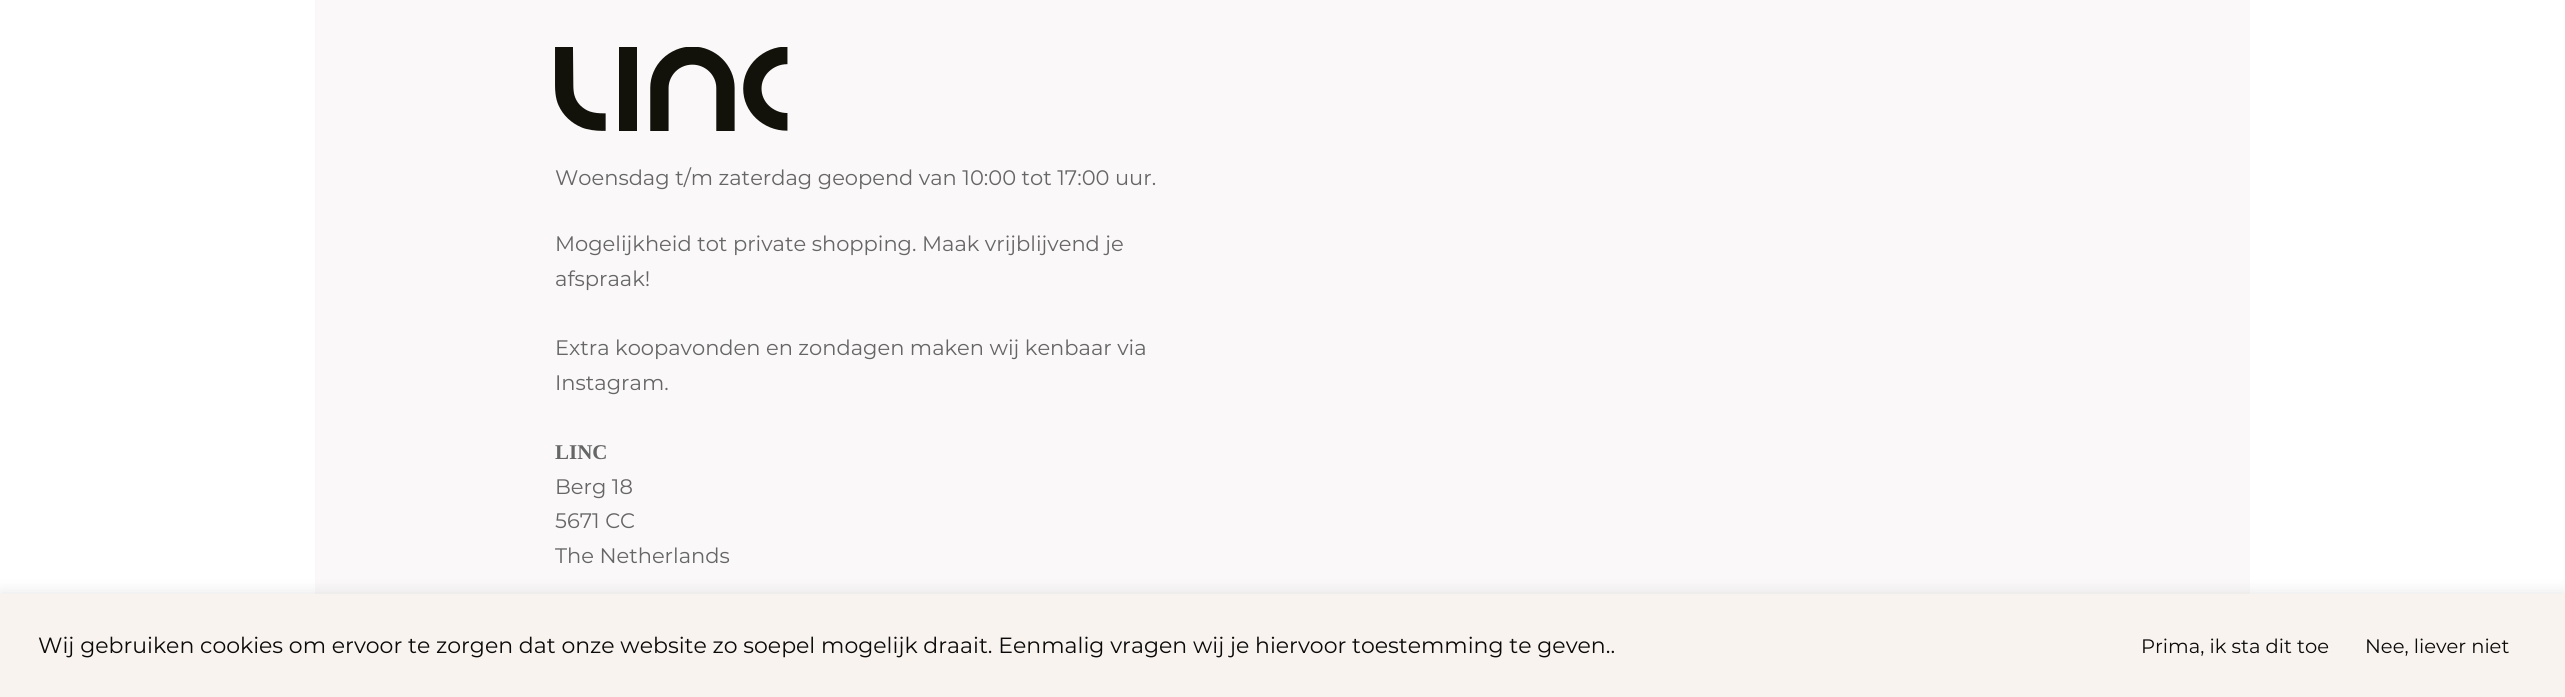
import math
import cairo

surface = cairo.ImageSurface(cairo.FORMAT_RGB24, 2565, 697)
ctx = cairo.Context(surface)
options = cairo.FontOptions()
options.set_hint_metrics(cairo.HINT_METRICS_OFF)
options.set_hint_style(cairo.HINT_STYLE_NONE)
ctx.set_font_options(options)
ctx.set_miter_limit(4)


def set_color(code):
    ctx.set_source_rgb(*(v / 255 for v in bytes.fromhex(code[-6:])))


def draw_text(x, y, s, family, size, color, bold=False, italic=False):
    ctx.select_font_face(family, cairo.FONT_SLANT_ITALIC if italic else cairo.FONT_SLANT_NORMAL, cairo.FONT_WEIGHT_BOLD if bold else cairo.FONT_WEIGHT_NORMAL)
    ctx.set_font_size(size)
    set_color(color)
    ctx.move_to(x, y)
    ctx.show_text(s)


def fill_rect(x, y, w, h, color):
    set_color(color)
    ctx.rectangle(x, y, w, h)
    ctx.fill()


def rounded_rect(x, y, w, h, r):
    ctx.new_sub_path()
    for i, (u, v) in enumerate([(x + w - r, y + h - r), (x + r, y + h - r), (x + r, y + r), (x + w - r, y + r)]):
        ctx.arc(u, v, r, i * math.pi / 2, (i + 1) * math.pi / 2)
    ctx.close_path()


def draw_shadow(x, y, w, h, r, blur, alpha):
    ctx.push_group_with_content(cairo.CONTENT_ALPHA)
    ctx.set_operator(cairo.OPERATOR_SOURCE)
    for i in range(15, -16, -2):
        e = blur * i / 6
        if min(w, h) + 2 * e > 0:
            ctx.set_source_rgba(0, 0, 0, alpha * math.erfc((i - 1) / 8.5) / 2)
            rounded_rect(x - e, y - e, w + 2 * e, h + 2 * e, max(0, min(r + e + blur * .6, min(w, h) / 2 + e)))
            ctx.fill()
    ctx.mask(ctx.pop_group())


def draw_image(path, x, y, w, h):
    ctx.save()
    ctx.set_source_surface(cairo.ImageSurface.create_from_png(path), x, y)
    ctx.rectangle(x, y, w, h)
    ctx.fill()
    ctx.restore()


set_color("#ffffff")
ctx.paint()
fill_rect(315, 0, 1935, 594, "#faf8f8")
draw_image("assets/img1.png", 555, 47, 233, 84)
draw_text(555, 185, "Woensdag t/m zaterdag geopend van 10:00 tot 17:00 uur.", "Montserrat", 21, "#666666")
draw_text(555, 251, "Mogelijkheid tot private shopping. Maak vrijblijvend je", "Montserrat", 21, "#666666")
draw_text(555, 286, "afspraak!", "Montserrat", 21, "#666666")
draw_text(555, 355, "Extra koopavonden en zondagen maken wij kenbaar via", "Montserrat", 21, "#666666")
draw_text(555, 390, "Instagram.", "Montserrat", 21, "#666666")
draw_text(555, 459, "LINC", "Liberation Serif", 21, "#666666", bold=True)
draw_text(555, 494, "Berg 18", "Montserrat", 21, "#666666")
draw_text(555, 528, "5671 CC", "Montserrat", 21, "#666666")
draw_text(555, 563, "The Netherlands", "Montserrat", 21, "#666666")
set_color("#acabab")
draw_shadow(0, 593, 2565, 103, 0, 7.5, 0.3)
fill_rect(0, 594, 2565, 103, "#f9f3ef")
draw_text(38, 653, "Wij gebruiken cookies om ervoor te zorgen dat onze website zo soepel mogelijk draait. Eenmalig vragen wij je hiervoor toestemming te geven..", "Montserrat", 22, "#0a0a0a")
draw_text(2141, 653, "Prima, ik sta dit toe", "Montserrat", 19.5, "#0a0a0a")
draw_text(2365, 653, "Nee, liever niet", "Montserrat", 19.5, "#0a0a0a")
surface.write_to_png("output.png")
